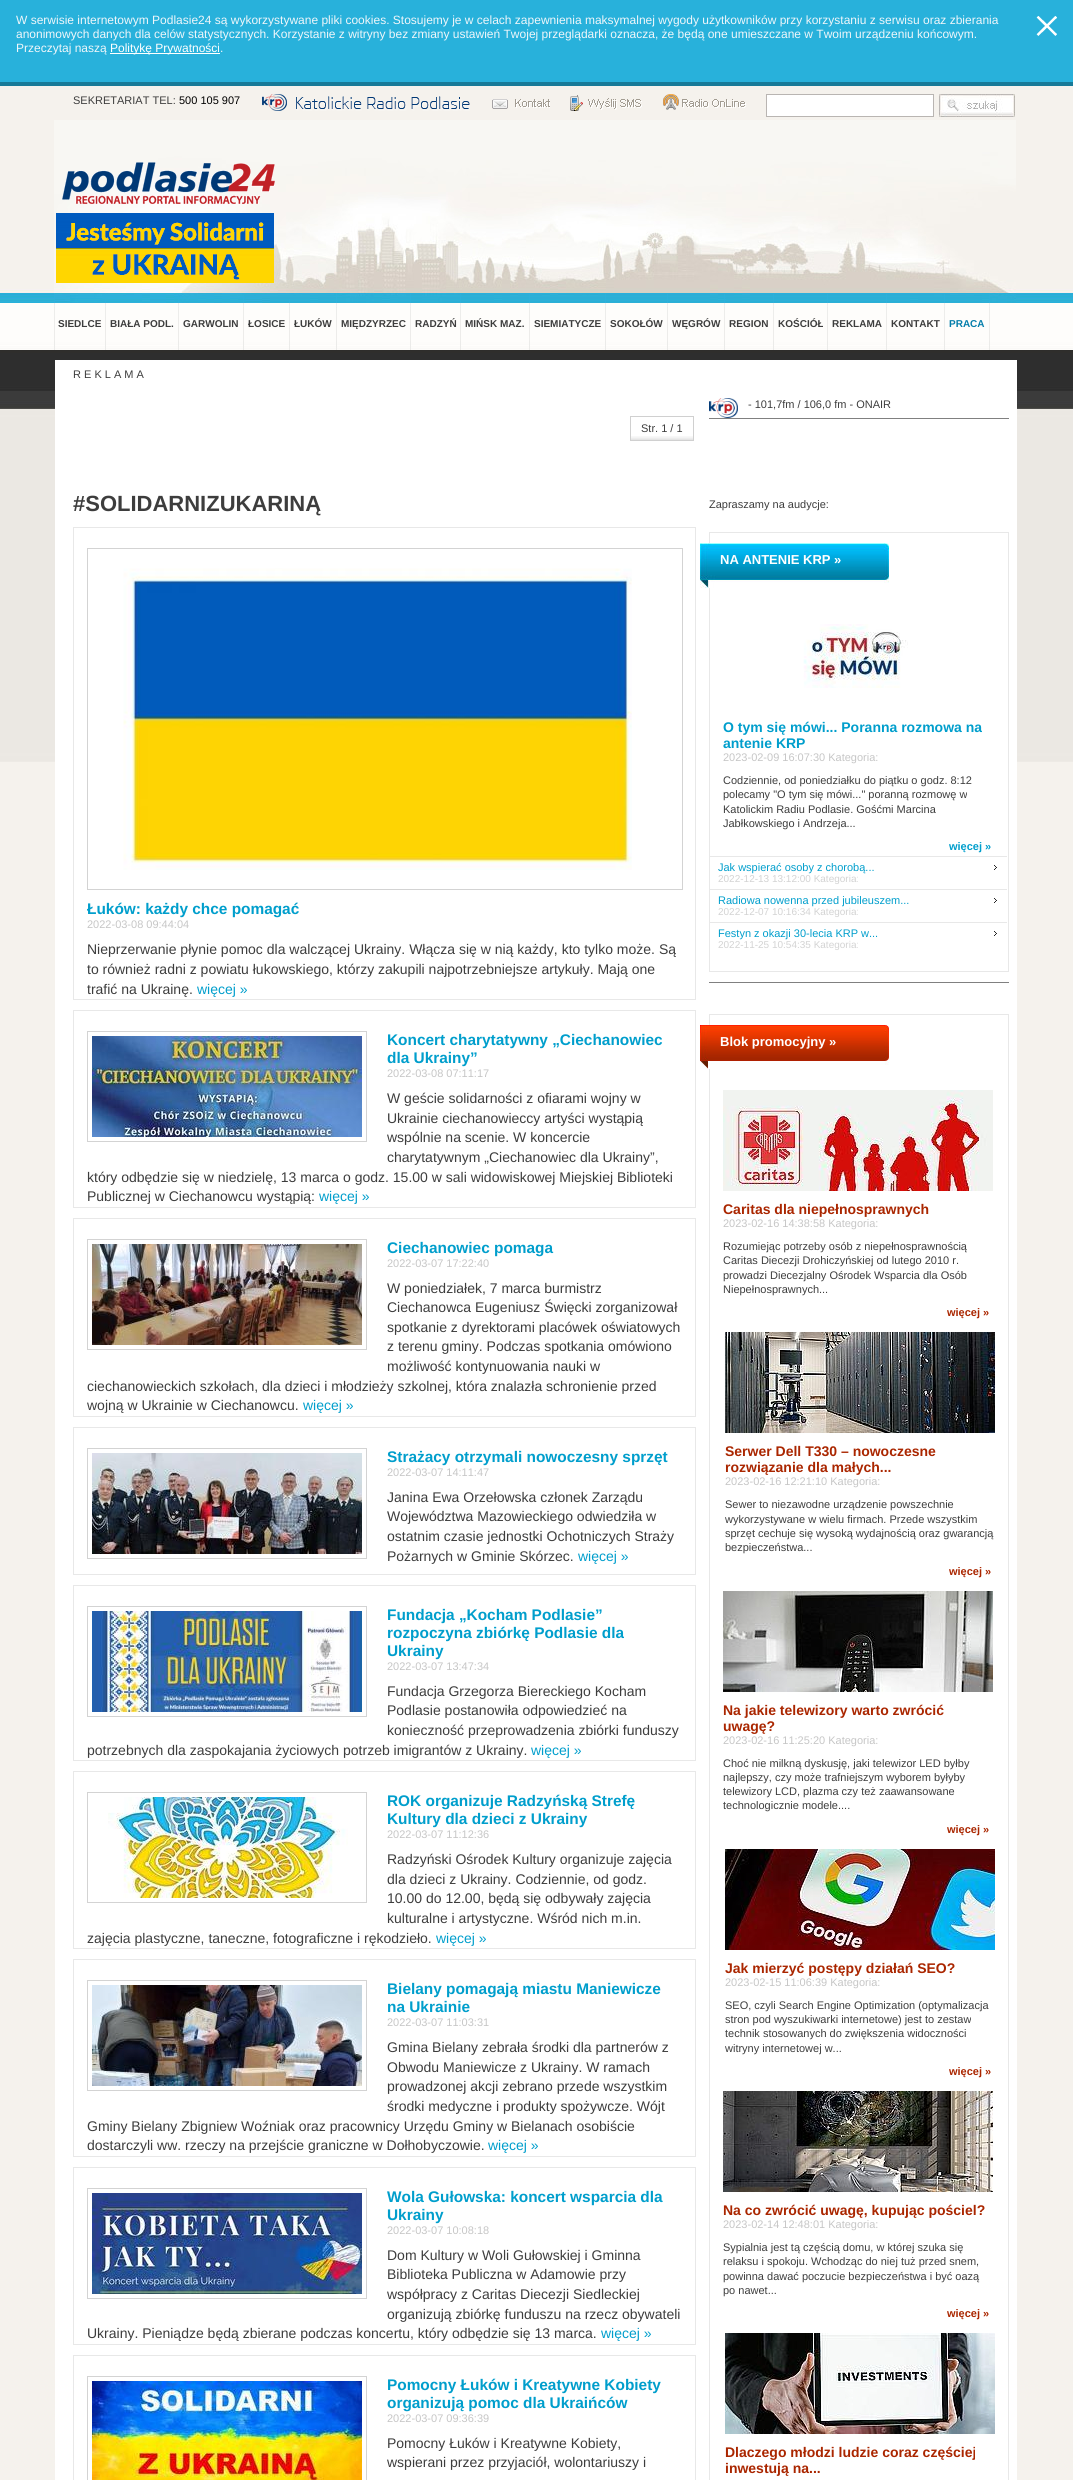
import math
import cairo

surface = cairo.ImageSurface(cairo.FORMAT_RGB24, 1073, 2480)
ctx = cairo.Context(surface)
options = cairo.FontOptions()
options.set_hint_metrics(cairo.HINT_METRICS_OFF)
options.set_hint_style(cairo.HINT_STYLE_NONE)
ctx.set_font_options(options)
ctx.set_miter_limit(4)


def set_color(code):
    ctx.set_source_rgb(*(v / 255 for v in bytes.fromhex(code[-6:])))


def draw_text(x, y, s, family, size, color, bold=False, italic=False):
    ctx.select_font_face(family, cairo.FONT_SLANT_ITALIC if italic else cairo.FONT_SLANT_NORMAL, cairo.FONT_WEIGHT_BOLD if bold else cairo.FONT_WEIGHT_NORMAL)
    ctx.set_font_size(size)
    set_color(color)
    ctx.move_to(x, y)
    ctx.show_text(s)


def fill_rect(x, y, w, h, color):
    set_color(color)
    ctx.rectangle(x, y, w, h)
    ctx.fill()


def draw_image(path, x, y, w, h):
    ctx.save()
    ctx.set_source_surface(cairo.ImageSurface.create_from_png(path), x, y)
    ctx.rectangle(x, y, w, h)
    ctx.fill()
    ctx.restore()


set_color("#f5f2ed")
ctx.paint()
fill_rect(0, 0, 1073, 82, "#28b1db")
fill_rect(0, 82, 1073, 4, "#177a98")
draw_text(16, 24, "W serwisie internetowym Podlasie24 są wykorzystywane pliki cookies. Stosujemy je w celach zapewnienia maksymalnej wygody użytkowników przy korzystaniu z serwisu oraz zbierania", "Liberation Sans", 12, "#eff6fa")
draw_text(16, 38, "anonimowych danych dla celów statystycznych. Korzystanie z witryny bez zmiany ustawień Twojej przeglądarki oznacza, że będą one umieszczane w Twoim urządzeniu końcowym.", "Liberation Sans", 12, "#eff6fa")
draw_text(16, 52, "Przeczytaj naszą", "Liberation Sans", 12, "#eff6fa")
fill_rect(110, 53, 110, 1, "#ffffff")
draw_text(110, 52, "Politykę Prywatności", "Liberation Sans", 12, "#ffffff")
draw_text(220, 52, ".", "Liberation Sans", 12, "#eff6fa")
draw_image("assets/img1.png", 1036, 16, 21, 20)
draw_image("assets/img2.png", 0, 289, 1073, 473)
draw_image("assets/img3.png", 54, 120, 962, 183)
draw_text(73, 104, "SEKRETARIAT TEL:", "Liberation Sans", 11, "#3d3d3d")
draw_text(179, 104, "500 105 907", "Liberation Sans", 11, "#000000")
draw_image("assets/img4.png", 262, 94, 208, 17)
draw_image("assets/img5.png", 492, 99, 58, 10)
draw_image("assets/img6.png", 570, 95, 72, 16)
draw_image("assets/img7.png", 663, 94, 83, 16)
set_color("#ffffff")
ctx.rectangle(766.5, 94.5, 167, 22)
ctx.fill_preserve()
set_color("#b9b5b2")
ctx.set_line_width(1)
ctx.stroke()
draw_image("assets/img8.png", 939, 94, 76, 23)
draw_image("assets/img9.png", 62, 162, 213, 42)
draw_image("assets/img10.png", 56, 213, 218, 70)
draw_image("assets/img11.png", 54, 293, 1, 57)
draw_image("assets/img11.png", 105, 293, 1, 57)
draw_text(58, 327, "SIEDLCE", "Liberation Sans", 10, "#3d3d3d", bold=True)
draw_image("assets/img11.png", 178, 293, 1, 57)
draw_text(110, 327, "BIAŁA PODL.", "Liberation Sans", 10, "#3d3d3d", bold=True)
draw_image("assets/img12.png", 243, 295, 1, 55)
draw_text(183, 327, "GARWOLIN", "Liberation Sans", 10, "#3d3d3d", bold=True)
draw_image("assets/img13.png", 289, 299, 1, 51)
draw_text(248, 327, "ŁOSICE", "Liberation Sans", 10, "#3d3d3d", bold=True)
draw_image("assets/img11.png", 336, 293, 1, 57)
draw_text(294, 327, "ŁUKÓW", "Liberation Sans", 10, "#3d3d3d", bold=True)
draw_image("assets/img14.png", 410, 294, 1, 56)
draw_text(341, 327, "MIĘDZYRZEC", "Liberation Sans", 10, "#3d3d3d", bold=True)
draw_image("assets/img14.png", 460, 294, 1, 56)
draw_text(415, 327, "RADZYŃ", "Liberation Sans", 10, "#3d3d3d", bold=True)
draw_image("assets/img14.png", 529, 294, 1, 56)
draw_text(465, 327, "MIŃSK MAZ.", "Liberation Sans", 10, "#3d3d3d", bold=True)
draw_image("assets/img11.png", 605, 293, 1, 57)
draw_text(534, 327, "SIEMIATYCZE", "Liberation Sans", 10, "#3d3d3d", bold=True)
draw_image("assets/img14.png", 667, 294, 1, 56)
draw_text(610, 327, "SOKOŁÓW", "Liberation Sans", 10, "#3d3d3d", bold=True)
draw_image("assets/img14.png", 724, 294, 1, 56)
draw_text(672, 327, "WĘGRÓW", "Liberation Sans", 10, "#3d3d3d", bold=True)
draw_image("assets/img14.png", 773, 294, 1, 56)
draw_text(729, 327, "REGION", "Liberation Sans", 10, "#3d3d3d", bold=True)
draw_image("assets/img14.png", 827, 294, 1, 56)
draw_text(778, 327, "KOŚCIÓŁ", "Liberation Sans", 10, "#3d3d3d", bold=True)
draw_image("assets/img14.png", 886, 294, 1, 56)
draw_text(832, 327, "REKLAMA", "Liberation Sans", 10, "#3d3d3d", bold=True)
draw_image("assets/img14.png", 944, 294, 1, 56)
draw_text(891, 327, "KONTAKT", "Liberation Sans", 10, "#3d3d3d", bold=True)
draw_image("assets/img11.png", 989, 293, 1, 57)
draw_text(949, 327, "PRACA", "Liberation Sans", 10, "#047daa", bold=True)
fill_rect(55, 360, 962, 2120, "#ffffff")
draw_text(73, 378, "R E K L A M A", "Liberation Sans", 11, "#3d3d3d")
draw_image("assets/img15.png", 631, 436, 62, 4)
ctx.rectangle(630.5, 416.5, 63, 24)
set_color("#d0d0d0")
ctx.stroke()
draw_text(641, 432, "Str. 1 / 1", "Liberation Sans", 11, "#3d3d3d")
draw_text(73, 511, "#SOLIDARNIZUKARINĄ", "Liberation Sans", 22, "#3d3d3d", bold=True)
ctx.rectangle(73.5, 527.5, 622, 472)
set_color("#e8e8e8")
ctx.stroke()
ctx.rectangle(87.5, 548.5, 595, 341)
set_color("#d3d3d3")
ctx.stroke()
draw_image("assets/img16.png", 123, 568, 509, 302)
draw_text(87, 914, "Łuków: każdy chce pomagać", "Liberation Sans", 15.4, "#009ecc", bold=True)
draw_text(87, 928, "2022-03-08 09:44:04", "Liberation Sans", 11, "#c6c6c6")
draw_text(87, 954, "Nieprzerwanie płynie pomoc dla walczącej Ukrainy. Włącza się w nią każdy, kto tylko może. Są", "Liberation Sans", 14, "#3d3d3d")
draw_text(87, 974, "to również radni z powiatu łukowskiego, którzy zakupili najpotrzebniejsze artykuły. Mają one", "Liberation Sans", 14, "#3d3d3d")
draw_text(87, 994, "trafić na Ukrainę.", "Liberation Sans", 14, "#3d3d3d")
draw_text(197, 994, "więcej »", "Liberation Sans", 14, "#009ecc")
ctx.rectangle(73.5, 1010.5, 622, 197)
set_color("#e8e8e8")
ctx.stroke()
ctx.rectangle(87.5, 1031.5, 279, 110)
set_color("#d3d3d3")
ctx.stroke()
draw_image("assets/img17.png", 92, 1036, 270, 101)
draw_text(387, 1045, "Koncert charytatywny „Ciechanowiec", "Liberation Sans", 15.4, "#009ecc", bold=True)
draw_text(387, 1063, "dla Ukrainy”", "Liberation Sans", 15.4, "#009ecc", bold=True)
draw_text(387, 1077, "2022-03-08 07:11:17", "Liberation Sans", 11, "#c6c6c6")
draw_text(387, 1103, "W geście solidarności z ofiarami wojny w", "Liberation Sans", 14, "#3d3d3d")
draw_text(387, 1123, "Ukrainie ciechanowieccy artyści wystąpią", "Liberation Sans", 14, "#3d3d3d")
draw_text(387, 1142, "wspólnie na scenie. W koncercie", "Liberation Sans", 14, "#3d3d3d")
draw_text(387, 1162, "charytatywnym „Ciechanowiec dla Ukrainy”,", "Liberation Sans", 14, "#3d3d3d")
draw_text(87, 1182, "który odbędzie się w niedzielę, 13 marca o godz. 15.00 w sali widowiskowej Miejskiej Biblioteki", "Liberation Sans", 14, "#3d3d3d")
draw_text(87, 1201, "Publicznej w Ciechanowcu wystąpią:", "Liberation Sans", 14, "#3d3d3d")
draw_text(319, 1201, "więcej »", "Liberation Sans", 14, "#009ecc")
ctx.rectangle(73.5, 1218.5, 622, 198)
set_color("#e8e8e8")
ctx.stroke()
ctx.rectangle(87.5, 1239.5, 279, 110)
set_color("#d3d3d3")
ctx.stroke()
draw_image("assets/img18.png", 92, 1244, 270, 101)
draw_text(387, 1253, "Ciechanowiec pomaga", "Liberation Sans", 15.4, "#009ecc", bold=True)
draw_text(387, 1267, "2022-03-07 17:22:40", "Liberation Sans", 11, "#c6c6c6")
draw_text(387, 1293, "W poniedziałek, 7 marca burmistrz", "Liberation Sans", 14, "#3d3d3d")
draw_text(387, 1312, "Ciechanowca Eugeniusz Święcki zorganizował", "Liberation Sans", 14, "#3d3d3d")
draw_text(387, 1332, "spotkanie z dyrektorami placówek oświatowych", "Liberation Sans", 14, "#3d3d3d")
draw_text(387, 1351, "z terenu gminy. Podczas spotkania omówiono", "Liberation Sans", 14, "#3d3d3d")
draw_text(387, 1371, "możliwość kontynuowania nauki w", "Liberation Sans", 14, "#3d3d3d")
draw_text(87, 1391, "ciechanowieckich szkołach, dla dzieci i młodzieży szkolnej, która znalazła schronienie przed", "Liberation Sans", 14, "#3d3d3d")
draw_text(87, 1410, "wojną w Ukrainie w Ciechanowcu.", "Liberation Sans", 14, "#3d3d3d")
draw_text(303, 1410, "więcej »", "Liberation Sans", 14, "#009ecc")
ctx.rectangle(73.5, 1427.5, 622, 147)
set_color("#e8e8e8")
ctx.stroke()
ctx.rectangle(87.5, 1448.5, 279, 110)
set_color("#d3d3d3")
ctx.stroke()
draw_image("assets/img19.png", 92, 1453, 270, 101)
draw_text(387, 1462, "Strażacy otrzymali nowoczesny sprzęt", "Liberation Sans", 15.4, "#009ecc", bold=True)
draw_text(387, 1476, "2022-03-07 14:11:47", "Liberation Sans", 11, "#c6c6c6")
draw_text(387, 1502, "Janina Ewa Orzełowska członek Zarządu", "Liberation Sans", 14, "#3d3d3d")
draw_text(387, 1521, "Województwa Mazowieckiego odwiedziła w", "Liberation Sans", 14, "#3d3d3d")
draw_text(387, 1541, "ostatnim czasie jednostki Ochotniczych Straży", "Liberation Sans", 14, "#3d3d3d")
draw_text(387, 1561, "Pożarnych w Gminie Skórzec.", "Liberation Sans", 14, "#3d3d3d")
draw_text(578, 1561, "więcej »", "Liberation Sans", 14, "#009ecc")
ctx.rectangle(73.5, 1585.5, 622, 175)
set_color("#e8e8e8")
ctx.stroke()
ctx.rectangle(87.5, 1606.5, 279, 110)
set_color("#d3d3d3")
ctx.stroke()
draw_image("assets/img20.png", 92, 1611, 270, 101)
draw_text(387, 1620, "Fundacja „Kocham Podlasie”", "Liberation Sans", 15.4, "#009ecc", bold=True)
draw_text(387, 1638, "rozpoczyna zbiórkę Podlasie dla", "Liberation Sans", 15.4, "#009ecc", bold=True)
draw_text(387, 1656, "Ukrainy", "Liberation Sans", 15.4, "#009ecc", bold=True)
draw_text(387, 1670, "2022-03-07 13:47:34", "Liberation Sans", 11, "#c6c6c6")
draw_text(387, 1696, "Fundacja Grzegorza Biereckiego Kocham", "Liberation Sans", 14, "#3d3d3d")
draw_text(387, 1715, "Podlasie postanowiła odpowiedzieć na", "Liberation Sans", 14, "#3d3d3d")
draw_text(387, 1735, "konieczność przeprowadzenia zbiórki funduszy", "Liberation Sans", 14, "#3d3d3d")
draw_text(87, 1755, "potrzebnych dla zaspokajania życiowych potrzeb imigrantów z Ukrainy.", "Liberation Sans", 14, "#3d3d3d")
draw_text(531, 1755, "więcej »", "Liberation Sans", 14, "#009ecc")
ctx.rectangle(73.5, 1771.5, 622, 177)
set_color("#e8e8e8")
ctx.stroke()
ctx.rectangle(87.5, 1792.5, 279, 110)
set_color("#d3d3d3")
ctx.stroke()
draw_image("assets/img21.png", 108, 1797, 240, 101)
draw_text(387, 1806, "ROK organizuje Radzyńską Strefę", "Liberation Sans", 15.4, "#009ecc", bold=True)
draw_text(387, 1824, "Kultury dla dzieci z Ukrainy", "Liberation Sans", 15.4, "#009ecc", bold=True)
draw_text(387, 1838, "2022-03-07 11:12:36", "Liberation Sans", 11, "#c6c6c6")
draw_text(387, 1864, "Radzyński Ośrodek Kultury organizuje zajęcia", "Liberation Sans", 14, "#3d3d3d")
draw_text(387, 1884, "dla dzieci z Ukrainy. Codziennie, od godz.", "Liberation Sans", 14, "#3d3d3d")
draw_text(387, 1903, "10.00 do 12.00, będą się odbywały zajęcia", "Liberation Sans", 14, "#3d3d3d")
draw_text(387, 1923, "kulturalne i artystyczne. Wśród nich m.in.", "Liberation Sans", 14, "#3d3d3d")
draw_text(87, 1943, "zajęcia plastyczne, taneczne, fotograficzne i rękodzieło.", "Liberation Sans", 14, "#3d3d3d")
draw_text(436, 1943, "więcej »", "Liberation Sans", 14, "#009ecc")
ctx.rectangle(73.5, 1959.5, 622, 197)
set_color("#e8e8e8")
ctx.stroke()
ctx.rectangle(87.5, 1980.5, 279, 110)
set_color("#d3d3d3")
ctx.stroke()
draw_image("assets/img22.png", 92, 1985, 270, 101)
draw_text(387, 1994, "Bielany pomagają miastu Maniewicze", "Liberation Sans", 15.4, "#009ecc", bold=True)
draw_text(387, 2012, "na Ukrainie", "Liberation Sans", 15.4, "#009ecc", bold=True)
draw_text(387, 2026, "2022-03-07 11:03:31", "Liberation Sans", 11, "#c6c6c6")
draw_text(387, 2052, "Gmina Bielany zebrała środki dla partnerów z", "Liberation Sans", 14, "#3d3d3d")
draw_text(387, 2072, "Obwodu Maniewicze z Ukrainy. W ramach", "Liberation Sans", 14, "#3d3d3d")
draw_text(387, 2091, "prowadzonej akcji zebrano przede wszystkim", "Liberation Sans", 14, "#3d3d3d")
draw_text(387, 2111, "środki medyczne i produkty spożywcze. Wójt", "Liberation Sans", 14, "#3d3d3d")
draw_text(87, 2131, "Gminy Bielany Zbigniew Woźniak oraz pracownicy Urzędu Gminy w Bielanach osobiście", "Liberation Sans", 14, "#3d3d3d")
draw_text(87, 2150, "dostarczyli ww. rzeczy na przejście graniczne w Dołhobyczowie.", "Liberation Sans", 14, "#3d3d3d")
draw_text(488, 2150, "więcej »", "Liberation Sans", 14, "#009ecc")
ctx.rectangle(73.5, 2167.5, 622, 177)
set_color("#e8e8e8")
ctx.stroke()
ctx.rectangle(87.5, 2188.5, 279, 110)
set_color("#d3d3d3")
ctx.stroke()
draw_image("assets/img23.png", 92, 2193, 270, 101)
draw_text(387, 2202, "Wola Gułowska: koncert wsparcia dla", "Liberation Sans", 15.4, "#009ecc", bold=True)
draw_text(387, 2220, "Ukrainy", "Liberation Sans", 15.4, "#009ecc", bold=True)
draw_text(387, 2234, "2022-03-07 10:08:18", "Liberation Sans", 11, "#c6c6c6")
draw_text(387, 2260, "Dom Kultury w Woli Gułowskiej i Gminna", "Liberation Sans", 14, "#3d3d3d")
draw_text(387, 2279, "Biblioteka Publiczna w Adamowie przy", "Liberation Sans", 14, "#3d3d3d")
draw_text(387, 2299, "współpracy z Caritas Diecezji Siedleckiej", "Liberation Sans", 14, "#3d3d3d")
draw_text(387, 2319, "organizują zbiórkę funduszu na rzecz obywateli", "Liberation Sans", 14, "#3d3d3d")
draw_text(87, 2338, "Ukrainy. Pieniądze będą zbierane podczas koncertu, który odbędzie się 13 marca.", "Liberation Sans", 14, "#3d3d3d")
draw_text(601, 2338, "więcej »", "Liberation Sans", 14, "#009ecc")
ctx.rectangle(73.5, 2355.5, 622, 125)
set_color("#e8e8e8")
ctx.stroke()
ctx.rectangle(87.5, 2376.5, 279, 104)
set_color("#d3d3d3")
ctx.stroke()
draw_image("assets/img24.png", 92, 2381, 270, 99)
draw_text(387, 2390, "Pomocny Łuków i Kreatywne Kobiety", "Liberation Sans", 15.4, "#009ecc", bold=True)
draw_text(387, 2408, "organizują pomoc dla Ukraińców", "Liberation Sans", 15.4, "#009ecc", bold=True)
draw_text(387, 2422, "2022-03-07 09:36:39", "Liberation Sans", 11, "#c6c6c6")
draw_text(387, 2448, "Pomocny Łuków i Kreatywne Kobiety,", "Liberation Sans", 14, "#3d3d3d")
draw_text(387, 2467, "wspierani przez przyjaciół, wolontariuszy i", "Liberation Sans", 14, "#3d3d3d")
draw_image("assets/img25.png", 709, 398, 29, 20)
draw_text(748, 408, "- 101,7fm / 106,0 fm - ONAIR", "Liberation Sans", 11, "#3d3d3d")
fill_rect(709, 418, 300, 1, "#808080")
draw_text(709, 508, "Zapraszamy na audycje:", "Liberation Sans", 11, "#3d3d3d")
ctx.rectangle(709.5, 532.5, 299, 439)
set_color("#e8e8e8")
ctx.stroke()
draw_image("assets/img26.png", 700, 543, 189, 45)
draw_text(720, 564, "NA ANTENIE KRP »", "Liberation Sans", 13, "#ffffff", bold=True)
draw_image("assets/img27.png", 803, 624, 105, 64)
draw_text(723, 732, "O tym się mówi... Poranna rozmowa na", "Liberation Sans", 14, "#009ecc", bold=True)
draw_text(723, 748, "antenie KRP", "Liberation Sans", 14, "#009ecc", bold=True)
draw_text(723, 761, "2023-02-09 16:07:30 Kategoria:", "Liberation Sans", 11, "#c6c6c6")
draw_text(723, 784, "Codziennie, od poniedziałku do piątku o godz. 8:12", "Liberation Sans", 11, "#3d3d3d")
draw_text(723, 798, "polecamy \"O tym się mówi...\" poranną rozmowę w", "Liberation Sans", 11, "#3d3d3d")
draw_text(723, 813, "Katolickim Radiu Podlasie. Gośćmi Marcina", "Liberation Sans", 11, "#3d3d3d")
draw_text(723, 827, "Jabłkowskiego i Andrzeja...", "Liberation Sans", 11, "#3d3d3d")
draw_text(949, 850, "więcej »", "Liberation Sans", 11, "#009ecc", bold=True)
fill_rect(710, 856, 297, 1, "#e8e8e8")
fill_rect(710, 889, 297, 1, "#e8e8e8")
draw_image("assets/img28.png", 994, 865, 3, 5)
draw_text(718, 871, "Jak wspierać osoby z chorobą...", "Liberation Sans", 11, "#009ecc")
draw_text(718, 882, "2022-12-13 13:12:00 Kategoria:", "Liberation Sans", 10, "#d3d3d3")
fill_rect(710, 922, 297, 1, "#e8e8e8")
draw_image("assets/img28.png", 994, 898, 3, 5)
draw_text(718, 904, "Radiowa nowenna przed jubileuszem...", "Liberation Sans", 11, "#009ecc")
draw_text(718, 915, "2022-12-07 10:16:34 Kategoria:", "Liberation Sans", 10, "#d3d3d3")
draw_image("assets/img28.png", 994, 931, 3, 5)
draw_text(718, 937, "Festyn z okazji 30-lecia KRP w...", "Liberation Sans", 11, "#009ecc")
draw_text(718, 948, "2022-11-25 10:54:35 Kategoria:", "Liberation Sans", 10, "#d3d3d3")
fill_rect(709, 982, 300, 1, "#808080")
ctx.rectangle(709.5, 1014.5, 299, 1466)
set_color("#e8e8e8")
ctx.stroke()
draw_image("assets/img29.png", 700, 1025, 189, 44)
draw_text(720, 1046, "Blok promocyjny »", "Liberation Sans", 13, "#ffffff", bold=True)
draw_image("assets/img30.png", 723, 1090, 270, 101)
draw_text(723, 1214, "Caritas dla niepełnosprawnych", "Liberation Sans", 14, "#aa2600", bold=True)
draw_text(723, 1227, "2023-02-16 14:38:58 Kategoria:", "Liberation Sans", 11, "#c6c6c6")
draw_text(723, 1250, "Rozumiejąc potrzeby osób z niepełnosprawnością", "Liberation Sans", 11, "#3d3d3d")
draw_text(723, 1264, "Caritas Diecezji Drohiczyńskiej od lutego 2010 r.", "Liberation Sans", 11, "#3d3d3d")
draw_text(723, 1279, "prowadzi Diecezjalny Ośrodek Wsparcia dla Osób", "Liberation Sans", 11, "#3d3d3d")
draw_text(723, 1293, "Niepełnosprawnych...", "Liberation Sans", 11, "#3d3d3d")
draw_text(947, 1316, "więcej »", "Liberation Sans", 11, "#aa2600", bold=True)
draw_image("assets/img31.png", 725, 1332, 270, 101)
draw_text(725, 1456, "Serwer Dell T330 – nowoczesne", "Liberation Sans", 14, "#aa2600", bold=True)
draw_text(725, 1472, "rozwiązanie dla małych...", "Liberation Sans", 14, "#aa2600", bold=True)
draw_text(725, 1485, "2023-02-16 12:21:10 Kategoria:", "Liberation Sans", 11, "#c6c6c6")
draw_text(725, 1508, "Sewer to niezawodne urządzenie powszechnie", "Liberation Sans", 11, "#3d3d3d")
draw_text(725, 1523, "wykorzystywane w wielu firmach. Przede wszystkim", "Liberation Sans", 11, "#3d3d3d")
draw_text(725, 1537, "sprzęt cechuje się wysoką wydajnością oraz gwarancją", "Liberation Sans", 11, "#3d3d3d")
draw_text(725, 1551, "bezpieczeństwa...", "Liberation Sans", 11, "#3d3d3d")
draw_text(949, 1575, "więcej »", "Liberation Sans", 11, "#aa2600", bold=True)
draw_image("assets/img32.png", 723, 1591, 270, 101)
draw_text(723, 1715, "Na jakie telewizory warto zwrócić", "Liberation Sans", 14, "#aa2600", bold=True)
draw_text(723, 1731, "uwagę?", "Liberation Sans", 14, "#aa2600", bold=True)
draw_text(723, 1744, "2023-02-16 11:25:20 Kategoria:", "Liberation Sans", 11, "#c6c6c6")
draw_text(723, 1767, "Choć nie milkną dyskusję, jaki telewizor LED byłby", "Liberation Sans", 11, "#3d3d3d")
draw_text(723, 1781, "najlepszy, czy może trafniejszym wyborem byłyby", "Liberation Sans", 11, "#3d3d3d")
draw_text(723, 1795, "telewizory LCD, plazma czy też zaawansowane", "Liberation Sans", 11, "#3d3d3d")
draw_text(723, 1809, "technologicznie modele....", "Liberation Sans", 11, "#3d3d3d")
draw_text(947, 1833, "więcej »", "Liberation Sans", 11, "#aa2600", bold=True)
draw_image("assets/img33.png", 725, 1849, 270, 101)
draw_text(725, 1973, "Jak mierzyć postępy działań SEO?", "Liberation Sans", 14, "#aa2600", bold=True)
draw_text(725, 1986, "2023-02-15 11:06:39 Kategoria:", "Liberation Sans", 11, "#c6c6c6")
draw_text(725, 2009, "SEO, czyli Search Engine Optimization (optymalizacja", "Liberation Sans", 11, "#3d3d3d")
draw_text(725, 2023, "stron pod wyszukiwarki internetowe) jest to zestaw", "Liberation Sans", 11, "#3d3d3d")
draw_text(725, 2037, "technik stosowanych do zwiększenia widoczności", "Liberation Sans", 11, "#3d3d3d")
draw_text(725, 2052, "witryny internetowej w...", "Liberation Sans", 11, "#3d3d3d")
draw_text(949, 2075, "więcej »", "Liberation Sans", 11, "#aa2600", bold=True)
draw_image("assets/img34.png", 723, 2091, 270, 101)
draw_text(723, 2215, "Na co zwrócić uwagę, kupując pościel?", "Liberation Sans", 14, "#aa2600", bold=True)
draw_text(723, 2228, "2023-02-14 12:48:01 Kategoria:", "Liberation Sans", 11, "#c6c6c6")
draw_text(723, 2251, "Sypialnia jest tą częścią domu, w której szuka się", "Liberation Sans", 11, "#3d3d3d")
draw_text(723, 2265, "relaksu i spokoju. Wchodząc do niej tuż przed snem,", "Liberation Sans", 11, "#3d3d3d")
draw_text(723, 2280, "powinna dawać poczucie bezpieczeństwa i być oazą", "Liberation Sans", 11, "#3d3d3d")
draw_text(723, 2294, "po nawet...", "Liberation Sans", 11, "#3d3d3d")
draw_text(947, 2317, "więcej »", "Liberation Sans", 11, "#aa2600", bold=True)
draw_image("assets/img35.png", 725, 2333, 270, 101)
draw_text(725, 2457, "Dlaczego młodzi ludzie coraz częściej", "Liberation Sans", 14, "#aa2600", bold=True)
draw_text(725, 2473, "inwestują na...", "Liberation Sans", 14, "#aa2600", bold=True)
surface.write_to_png("output.png")
